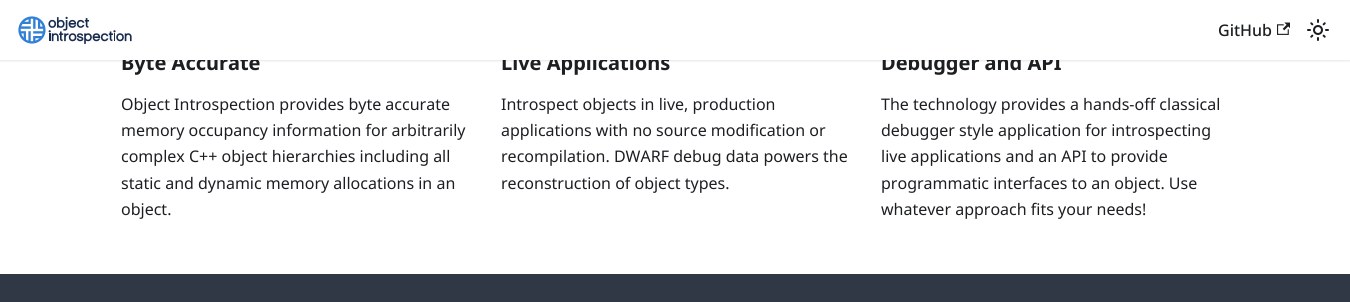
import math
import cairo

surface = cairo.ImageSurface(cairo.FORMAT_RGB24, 1350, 302)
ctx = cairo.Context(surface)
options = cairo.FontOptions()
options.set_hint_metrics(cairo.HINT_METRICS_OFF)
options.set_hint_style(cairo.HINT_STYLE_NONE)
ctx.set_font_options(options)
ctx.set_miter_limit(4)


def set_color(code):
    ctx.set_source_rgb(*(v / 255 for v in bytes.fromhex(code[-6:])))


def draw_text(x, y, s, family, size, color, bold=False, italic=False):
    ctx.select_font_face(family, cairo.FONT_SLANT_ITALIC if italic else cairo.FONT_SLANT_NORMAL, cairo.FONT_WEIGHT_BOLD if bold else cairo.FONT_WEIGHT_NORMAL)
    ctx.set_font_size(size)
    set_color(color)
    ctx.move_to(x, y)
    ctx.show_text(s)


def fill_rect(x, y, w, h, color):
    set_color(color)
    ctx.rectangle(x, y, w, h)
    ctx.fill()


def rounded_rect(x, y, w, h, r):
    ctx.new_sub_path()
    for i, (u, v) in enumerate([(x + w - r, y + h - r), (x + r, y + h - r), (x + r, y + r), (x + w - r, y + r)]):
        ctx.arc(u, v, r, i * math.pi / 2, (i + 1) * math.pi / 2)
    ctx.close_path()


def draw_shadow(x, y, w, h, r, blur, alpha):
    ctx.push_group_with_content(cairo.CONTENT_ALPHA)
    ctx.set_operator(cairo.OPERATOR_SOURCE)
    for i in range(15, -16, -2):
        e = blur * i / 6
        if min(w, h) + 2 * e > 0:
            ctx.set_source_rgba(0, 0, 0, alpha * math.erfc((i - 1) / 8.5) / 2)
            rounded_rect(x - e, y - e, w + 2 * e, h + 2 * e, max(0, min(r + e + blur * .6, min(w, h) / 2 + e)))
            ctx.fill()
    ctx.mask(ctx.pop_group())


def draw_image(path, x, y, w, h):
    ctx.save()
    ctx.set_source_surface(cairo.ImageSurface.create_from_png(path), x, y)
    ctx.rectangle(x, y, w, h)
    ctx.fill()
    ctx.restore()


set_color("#ffffff")
ctx.paint()
set_color("#000000")
draw_shadow(0, 1, 1350, 60, 0, 1, 0.1)
draw_text(121, 70, "Byte Accurate", "Noto Sans", 20, "#1c1e21", bold=True)
draw_text(501, 70, "Live Applications", "Noto Sans", 20, "#1c1e21", bold=True)
draw_text(881, 70, "Debugger and API", "Noto Sans", 20, "#1c1e21", bold=True)
fill_rect(0, 0, 1350, 60, "#ffffff")
draw_image("assets/img1.png", 18, 16, 114, 28)
draw_text(1218, 36, "GitHub", "Noto Sans Medium", 16, "#1c1e21")
draw_image("assets/img2.png", 1277, 22, 13, 13)
draw_image("assets/img3.png", 1307, 19, 22, 22)
draw_text(121, 110, "Object Introspection provides byte accurate", "Noto Sans", 16, "#1c1e21")
draw_text(121, 136, "memory occupancy information for arbitrarily", "Noto Sans", 16, "#1c1e21")
draw_text(121, 162, "complex C++ object hierarchies including all", "Noto Sans", 16, "#1c1e21")
draw_text(121, 189, "static and dynamic memory allocations in an", "Noto Sans", 16, "#1c1e21")
draw_text(121, 215, "object.", "Noto Sans", 16, "#1c1e21")
draw_text(501, 110, "Introspect objects in live, production", "Noto Sans", 16, "#1c1e21")
draw_text(501, 136, "applications with no source modification or", "Noto Sans", 16, "#1c1e21")
draw_text(501, 162, "recompilation. DWARF debug data powers the", "Noto Sans", 16, "#1c1e21")
draw_text(501, 189, "reconstruction of object types.", "Noto Sans", 16, "#1c1e21")
draw_text(881, 110, "The technology provides a hands-off classical", "Noto Sans", 16, "#1c1e21")
draw_text(881, 136, "debugger style application for introspecting", "Noto Sans", 16, "#1c1e21")
draw_text(881, 162, "live applications and an API to provide", "Noto Sans", 16, "#1c1e21")
draw_text(881, 189, "programmatic interfaces to an object. Use", "Noto Sans", 16, "#1c1e21")
draw_text(881, 215, "whatever approach fits your needs!", "Noto Sans", 16, "#1c1e21")
fill_rect(0, 274, 1350, 28, "#303846")
surface.write_to_png("output.png")
